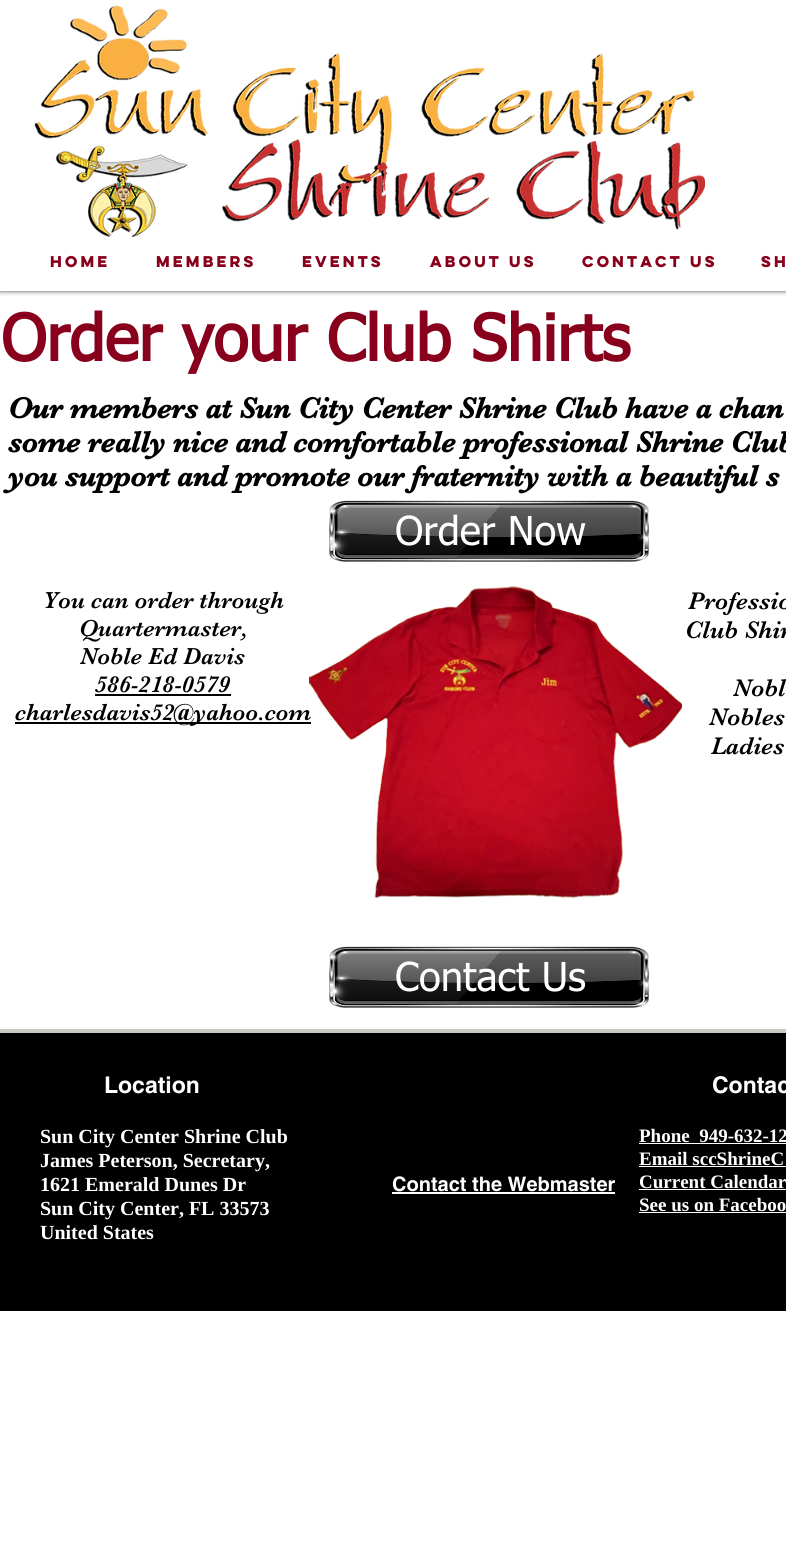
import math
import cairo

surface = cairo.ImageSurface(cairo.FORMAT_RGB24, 786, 1563)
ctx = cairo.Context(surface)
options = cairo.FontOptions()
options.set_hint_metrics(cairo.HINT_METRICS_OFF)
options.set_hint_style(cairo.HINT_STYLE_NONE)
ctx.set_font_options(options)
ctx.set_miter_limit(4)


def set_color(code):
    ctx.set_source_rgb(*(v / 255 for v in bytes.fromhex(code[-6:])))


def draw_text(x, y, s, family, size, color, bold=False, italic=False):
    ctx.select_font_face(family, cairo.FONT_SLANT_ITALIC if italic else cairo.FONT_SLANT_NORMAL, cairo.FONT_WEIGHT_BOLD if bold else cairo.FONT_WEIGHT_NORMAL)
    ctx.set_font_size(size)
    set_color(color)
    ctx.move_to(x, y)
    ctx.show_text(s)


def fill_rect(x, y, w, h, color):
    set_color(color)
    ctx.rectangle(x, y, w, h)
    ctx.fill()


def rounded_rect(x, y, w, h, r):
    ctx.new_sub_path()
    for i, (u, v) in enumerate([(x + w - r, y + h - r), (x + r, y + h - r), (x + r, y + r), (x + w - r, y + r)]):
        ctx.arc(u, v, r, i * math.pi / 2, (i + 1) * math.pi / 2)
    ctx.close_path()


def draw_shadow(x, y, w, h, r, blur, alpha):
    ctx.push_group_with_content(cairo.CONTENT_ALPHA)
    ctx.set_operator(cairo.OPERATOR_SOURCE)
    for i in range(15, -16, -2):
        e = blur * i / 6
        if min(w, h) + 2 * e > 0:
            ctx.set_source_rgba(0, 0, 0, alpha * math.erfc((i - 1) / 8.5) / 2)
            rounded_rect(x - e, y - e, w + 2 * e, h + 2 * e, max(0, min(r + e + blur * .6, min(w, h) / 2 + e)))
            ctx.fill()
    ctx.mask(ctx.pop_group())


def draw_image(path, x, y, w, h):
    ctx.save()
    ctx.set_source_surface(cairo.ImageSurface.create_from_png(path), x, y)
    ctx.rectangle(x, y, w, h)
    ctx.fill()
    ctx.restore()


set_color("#ffffff")
ctx.paint()
ctx.save()
ctx.rectangle(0, 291, 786, 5)
ctx.clip()
set_color("#000000")
draw_shadow(0, 0, 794, 291, 0, 2.5, 0.7)
ctx.restore()
draw_image("assets/img1.png", 34, 5, 671, 232)
draw_text(50, 267, "HOME", "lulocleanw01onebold", 14, "#88001b", bold=True)
draw_text(156, 267, "MEMBERS", "lulocleanw01onebold", 14, "#88001b", bold=True)
draw_text(302, 267, "EVENTS", "lulocleanw01onebold", 14, "#88001b", bold=True)
draw_text(430, 267, "ABOUT US", "lulocleanw01onebold", 14, "#88001b", bold=True)
draw_text(582, 267, "CONTACT US", "lulocleanw01onebold", 14, "#88001b", bold=True)
draw_text(761, 267, "SH", "lulocleanw01onebold", 14, "#88001b", bold=True)
draw_text(1, 361, "Order your Club Shirts", "tahoma", 64, "#88001b", bold=True)
draw_text(8, 418, "Our members at Sun City Center Shrine Club have a chan", "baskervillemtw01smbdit", 30, "#000000", bold=True)
draw_text(8, 452, "some really nice and comfortable professional Shrine Club", "baskervillemtw01smbdit", 30, "#000000", bold=True)
draw_text(8, 486, "you support and promote our fraternity with a beautiful s", "baskervillemtw01smbdit", 30, "#000000", bold=True)
draw_image("assets/img2.png", 329, 500, 321, 62)
draw_text(395, 545, "Order Now", "tahoma", 40, "#ffffff")
draw_text(43, 608, "You can order through", "baskervillemtw01smbdit", 24, "#000000")
draw_text(79, 636, "Quartermaster,", "baskervillemtw01smbdit", 24, "#000000")
draw_text(80, 664, "Noble Ed Davis", "baskervillemtw01smbdit", 24, "#000000")
draw_text(95, 692, "586-218-0579", "baskervillemtw01smbdit", 24, "#000000")
fill_rect(95, 694, 136, 2, "#000000")
draw_image("assets/img3.png", 309, 586, 373, 314)
fill_rect(15, 722, 296, 2, "#000000")
draw_text(15, 720, "charlesdavis52@yahoo.com", "baskervillemtw01smbdit", 24, "#000000")
draw_text(688, 609, "Professio", "baskervillemtw01smbdit", 25, "#000000")
draw_text(685, 638, "Club Shir", "baskervillemtw01smbdit", 25, "#000000")
draw_text(733, 696, "Nobl", "baskervillemtw01smbdit", 25, "#000000")
draw_text(709, 725, "Nobles", "baskervillemtw01smbdit", 25, "#000000")
draw_text(711, 754, "Ladies", "baskervillemtw01smbdit", 25, "#000000")
draw_image("assets/img2.png", 329, 946, 321, 62)
draw_text(395, 991, "Contact Us", "tahoma", 40, "#ffffff")
fill_rect(0, 1033, 786, 278, "#000000")
fill_rect(0, 1029, 786, 4, "#cdcbc1")
draw_text(104, 1093, "Location", "helvetica", 23, "#ffffff", bold=True)
draw_text(712, 1093, "Contac", "helvetica", 23, "#ffffff", bold=True)
draw_text(40, 1143, "Sun City Center Shrine Club", "Liberation Serif", 20, "#ffffff", bold=True)
draw_text(40, 1167, "James Peterson, Secretary,", "Liberation Serif", 20, "#ffffff", bold=True)
draw_text(40, 1191, "1621 Emerald Dunes Dr", "Liberation Serif", 20, "#ffffff", bold=True)
draw_text(40, 1215, "Sun City Center, FL 33573", "Liberation Serif", 20, "#ffffff", bold=True)
draw_text(40, 1239, "United States", "Liberation Serif", 20, "#ffffff", bold=True)
draw_text(392, 1191, "Contact the Webmaster", "helvetica", 20, "#ffffff", bold=True)
fill_rect(392, 1192, 223, 2, "#ffffff")
draw_text(639, 1142, "Phone  949-632-12", "Liberation Serif", 19, "#ffffff", bold=True)
fill_rect(639, 1143, 147, 1, "#ffffff")
draw_text(639, 1165, "Email sccShrineC", "Liberation Serif", 19, "#ffffff", bold=True)
fill_rect(639, 1166, 147, 1, "#ffffff")
draw_text(639, 1188, "Current Calendar", "Liberation Serif", 19, "#ffffff", bold=True)
fill_rect(639, 1189, 147, 1, "#ffffff")
draw_text(639, 1211, "See us on Faceboo", "Liberation Serif", 19, "#ffffff", bold=True)
fill_rect(639, 1212, 147, 1, "#ffffff")
surface.write_to_png("output.png")
